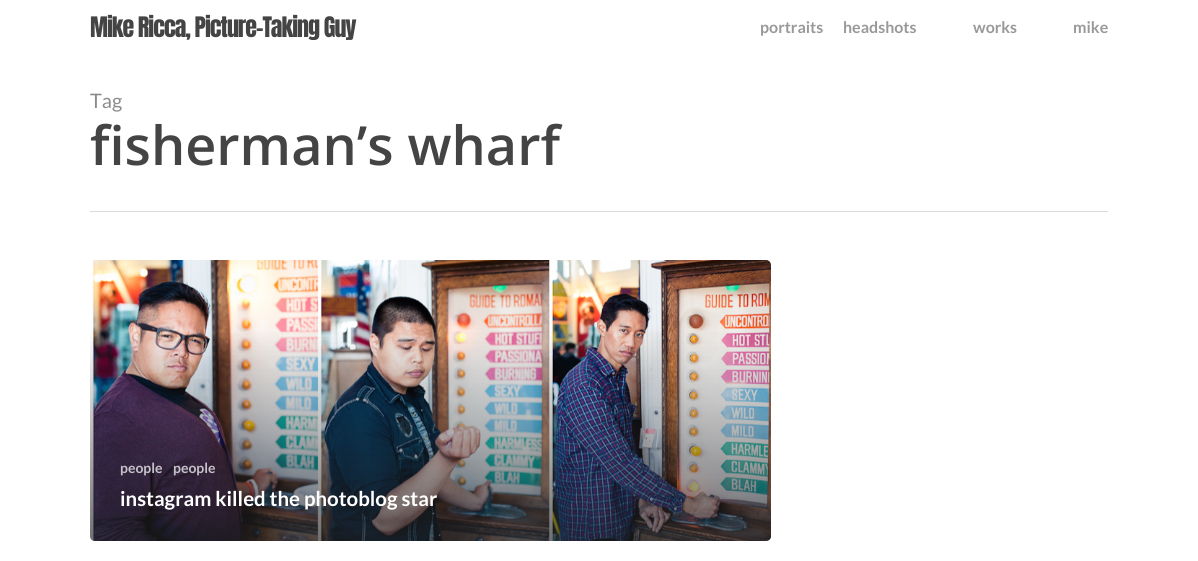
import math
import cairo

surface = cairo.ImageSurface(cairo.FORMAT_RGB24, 1198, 561)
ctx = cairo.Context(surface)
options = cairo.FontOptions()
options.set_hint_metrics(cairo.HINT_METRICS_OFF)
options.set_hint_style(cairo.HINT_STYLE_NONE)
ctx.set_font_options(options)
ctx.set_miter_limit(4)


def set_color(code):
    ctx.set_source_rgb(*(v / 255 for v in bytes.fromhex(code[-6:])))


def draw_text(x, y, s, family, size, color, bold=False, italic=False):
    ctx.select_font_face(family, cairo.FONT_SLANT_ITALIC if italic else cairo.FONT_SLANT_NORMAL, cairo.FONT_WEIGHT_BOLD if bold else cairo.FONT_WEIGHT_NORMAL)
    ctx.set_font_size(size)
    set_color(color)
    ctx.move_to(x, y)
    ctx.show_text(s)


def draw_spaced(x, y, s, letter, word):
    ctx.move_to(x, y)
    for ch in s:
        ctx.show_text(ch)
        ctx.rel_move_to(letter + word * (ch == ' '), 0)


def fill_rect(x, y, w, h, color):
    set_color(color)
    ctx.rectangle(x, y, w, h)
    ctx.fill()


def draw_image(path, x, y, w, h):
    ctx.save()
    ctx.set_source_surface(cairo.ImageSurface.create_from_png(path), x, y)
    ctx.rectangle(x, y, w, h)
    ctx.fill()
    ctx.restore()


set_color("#ffffff")
ctx.paint()
ctx.select_font_face("Anton")
ctx.set_font_size(24)
set_color("#444444")
draw_spaced(90, 37, "Mike Ricca, Picture-Taking Guy", -1, 0)
draw_text(760, 33, "portraits", "Lato", 16, "#999999", bold=True)
draw_text(843, 33, "headshots", "Lato", 16, "#999999", bold=True)
draw_text(973, 33, "works", "Lato", 16, "#999999", bold=True)
draw_text(1073, 33, "mike", "Lato", 16, "#999999", bold=True)
fill_rect(90, 211, 1018, 1, "#d9d9d9")
draw_text(90, 108, "Tag", "Lato", 20, "#8c8c8c")
draw_text(90, 165, "fisherman’s wharf", "Open Sans SemiBold", 54, "#444444")
draw_image("assets/img1.png", 90, 260, 681, 281)
gradient = cairo.LinearGradient(433, 330, 433, 542)
gradient.add_color_stop_rgba(0, 0.137, 0.137, 0.137, 0)
gradient.add_color_stop_rgba(1, 0.137, 0.137, 0.137, 0.65)
ctx.set_source(gradient)
ctx.new_path()
ctx.move_to(90, 330)
ctx.line_to(771, 330)
ctx.line_to(771, 536)
ctx.curve_to(771, 539, 769, 541, 766, 541)
ctx.line_to(95, 541)
ctx.curve_to(92, 541, 90, 539, 90, 536)
ctx.close_path()
ctx.fill()
draw_text(120, 473, "people", "Lato", 14, "#c6c2c9", bold=True)
draw_text(173, 473, "people", "Lato", 14, "#c6c2c9", bold=True)
draw_text(120, 506, "instagram killed the photoblog star", "Lato", 20.4, "#ffffff", bold=True)
surface.write_to_png("output.png")
